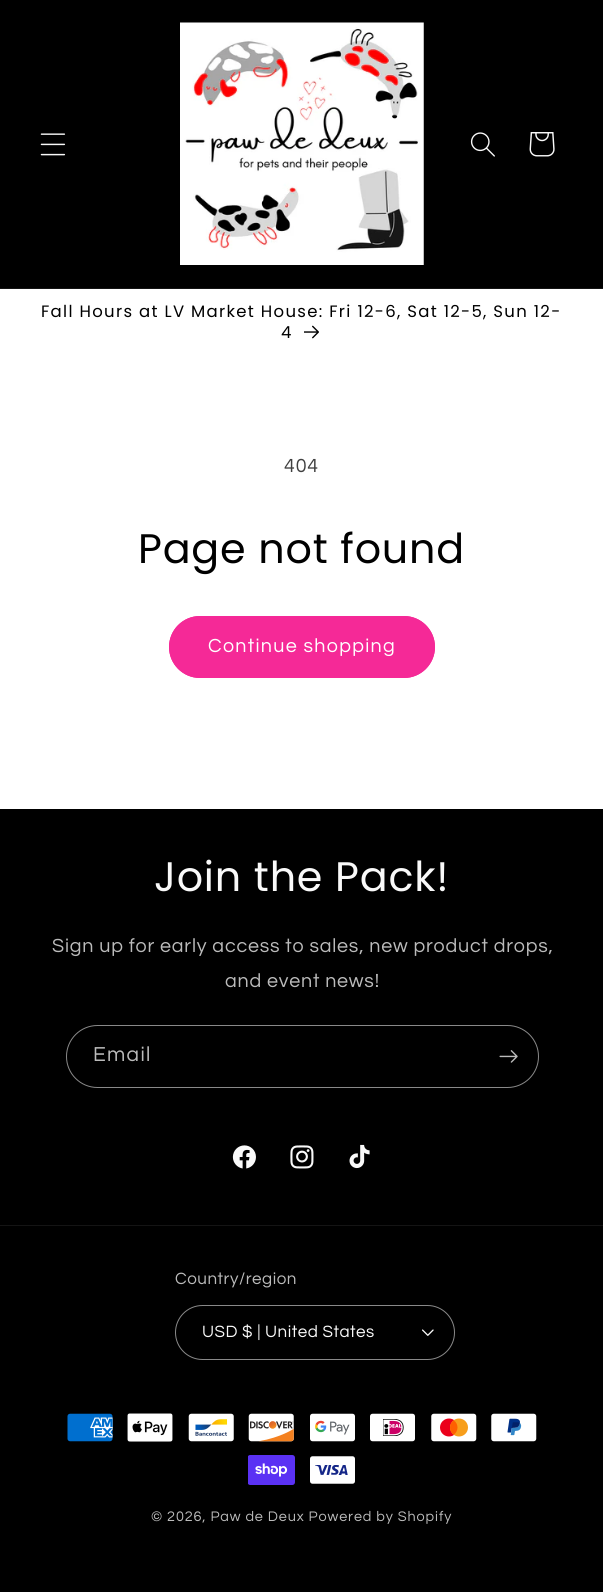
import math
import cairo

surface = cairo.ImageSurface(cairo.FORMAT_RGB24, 603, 1592)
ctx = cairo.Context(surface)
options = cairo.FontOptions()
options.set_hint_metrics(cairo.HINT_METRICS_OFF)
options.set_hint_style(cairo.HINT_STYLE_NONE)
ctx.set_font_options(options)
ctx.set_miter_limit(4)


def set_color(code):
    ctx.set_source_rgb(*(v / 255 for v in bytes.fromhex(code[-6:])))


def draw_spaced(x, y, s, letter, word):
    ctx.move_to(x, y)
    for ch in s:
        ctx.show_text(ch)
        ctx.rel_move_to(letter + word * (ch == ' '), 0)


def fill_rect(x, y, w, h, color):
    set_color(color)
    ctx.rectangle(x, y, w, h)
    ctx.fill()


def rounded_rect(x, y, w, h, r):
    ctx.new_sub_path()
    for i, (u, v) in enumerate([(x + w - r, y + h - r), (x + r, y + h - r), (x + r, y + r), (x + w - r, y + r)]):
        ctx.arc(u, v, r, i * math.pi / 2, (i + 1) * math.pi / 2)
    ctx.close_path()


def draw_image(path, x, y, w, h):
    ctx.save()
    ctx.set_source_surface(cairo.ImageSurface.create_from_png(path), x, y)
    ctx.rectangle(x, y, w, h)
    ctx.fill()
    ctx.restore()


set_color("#ffffff")
ctx.paint()
fill_rect(0, 0, 603, 288, "#000000")
fill_rect(0, 288, 603, 1, "#141414")
draw_image("assets/img1.png", 40, 133, 26, 23)
draw_image("assets/img2.png", 180, 22, 244, 243)
draw_image("assets/img3.png", 470, 132, 25, 25)
draw_image("assets/img4.png", 529, 132, 26, 25)
ctx.select_font_face("Poppins")
ctx.set_font_size(16.5)
set_color("#000000")
draw_spaced(41, 317, "Fall Hours at LV Market House: Fri 12-6, Sat 12-5, Sun 12-", 1.3, 0)
draw_spaced(281, 338, "4", 1.3, 0)
draw_image("assets/img5.png", 304, 325, 15, 14)
ctx.select_font_face("Questrial")
ctx.set_font_size(19.7)
set_color("#404040")
draw_spaced(284, 472, "404", 0.8, 0)
ctx.select_font_face("Poppins")
ctx.set_font_size(41.25)
set_color("#000000")
draw_spaced(138, 563, "Page not found", 0.8, 0)
set_color("#f52997")
rounded_rect(169, 616, 266, 62, 31)
ctx.fill()
rounded_rect(169.5, 616.5, 265, 61, 30.5)
ctx.set_line_width(1)
ctx.stroke()
ctx.select_font_face("Questrial")
ctx.set_font_size(19.7)
set_color("#ffffff")
draw_spaced(208, 652, "Continue shopping", 1.3, 0)
fill_rect(0, 809, 603, 783, "#000000")
ctx.select_font_face("Poppins")
ctx.set_font_size(41.25)
set_color("#f9f9f9")
draw_spaced(154, 891, "Join the Pack!", 0.8, 0)
ctx.select_font_face("Questrial")
ctx.set_font_size(19.7)
set_color("#bbbbbb")
draw_spaced(52, 952, "Sign up for early access to sales, new product drops,", 0.8, 0)
draw_spaced(225, 987, "and event news!", 0.8, 0)
rounded_rect(66.5, 1025.5, 472, 62, 31)
set_color("#898989")
ctx.stroke()
ctx.set_font_size(21)
set_color("#bbbbbb")
draw_spaced(93, 1061, "Email", 1.3, 0)
draw_image("assets/img6.png", 499, 1050, 19, 13)
draw_image("assets/img7.png", 232, 1145, 24, 24)
draw_image("assets/img8.png", 290, 1145, 24, 24)
draw_image("assets/img9.png", 349, 1144, 21, 25)
fill_rect(0, 1225, 603, 1, "#141414")
ctx.set_font_size(17)
set_color("#bbbbbb")
draw_spaced(175, 1284, "Country/region", 0.5, 0)
draw_image("assets/img10.png", 422, 1329, 12, 7)
rounded_rect(175.5, 1305.5, 279, 54, 27)
set_color("#898989")
ctx.stroke()
set_color("#f9f9f9")
draw_spaced(202, 1337, "USD $ | United States", 0.5, 0)
draw_image("assets/img11.png", 67, 1413, 46, 29)
draw_image("assets/img12.png", 127, 1413, 46, 29)
draw_image("assets/img13.png", 188, 1413, 46, 29)
draw_image("assets/img14.png", 248, 1413, 46, 29)
draw_image("assets/img15.png", 310, 1413, 45, 29)
draw_image("assets/img16.png", 370, 1413, 45, 29)
draw_image("assets/img17.png", 431, 1413, 46, 29)
draw_image("assets/img18.png", 491, 1413, 46, 29)
draw_image("assets/img19.png", 248, 1455, 47, 30)
draw_image("assets/img20.png", 310, 1456, 45, 28)
ctx.set_font_size(14.4)
set_color("#bbbbbb")
draw_spaced(151, 1521, "© 2026, Paw de Deux Powered by Shopify", 0.9, 0)
surface.write_to_png("output.png")
